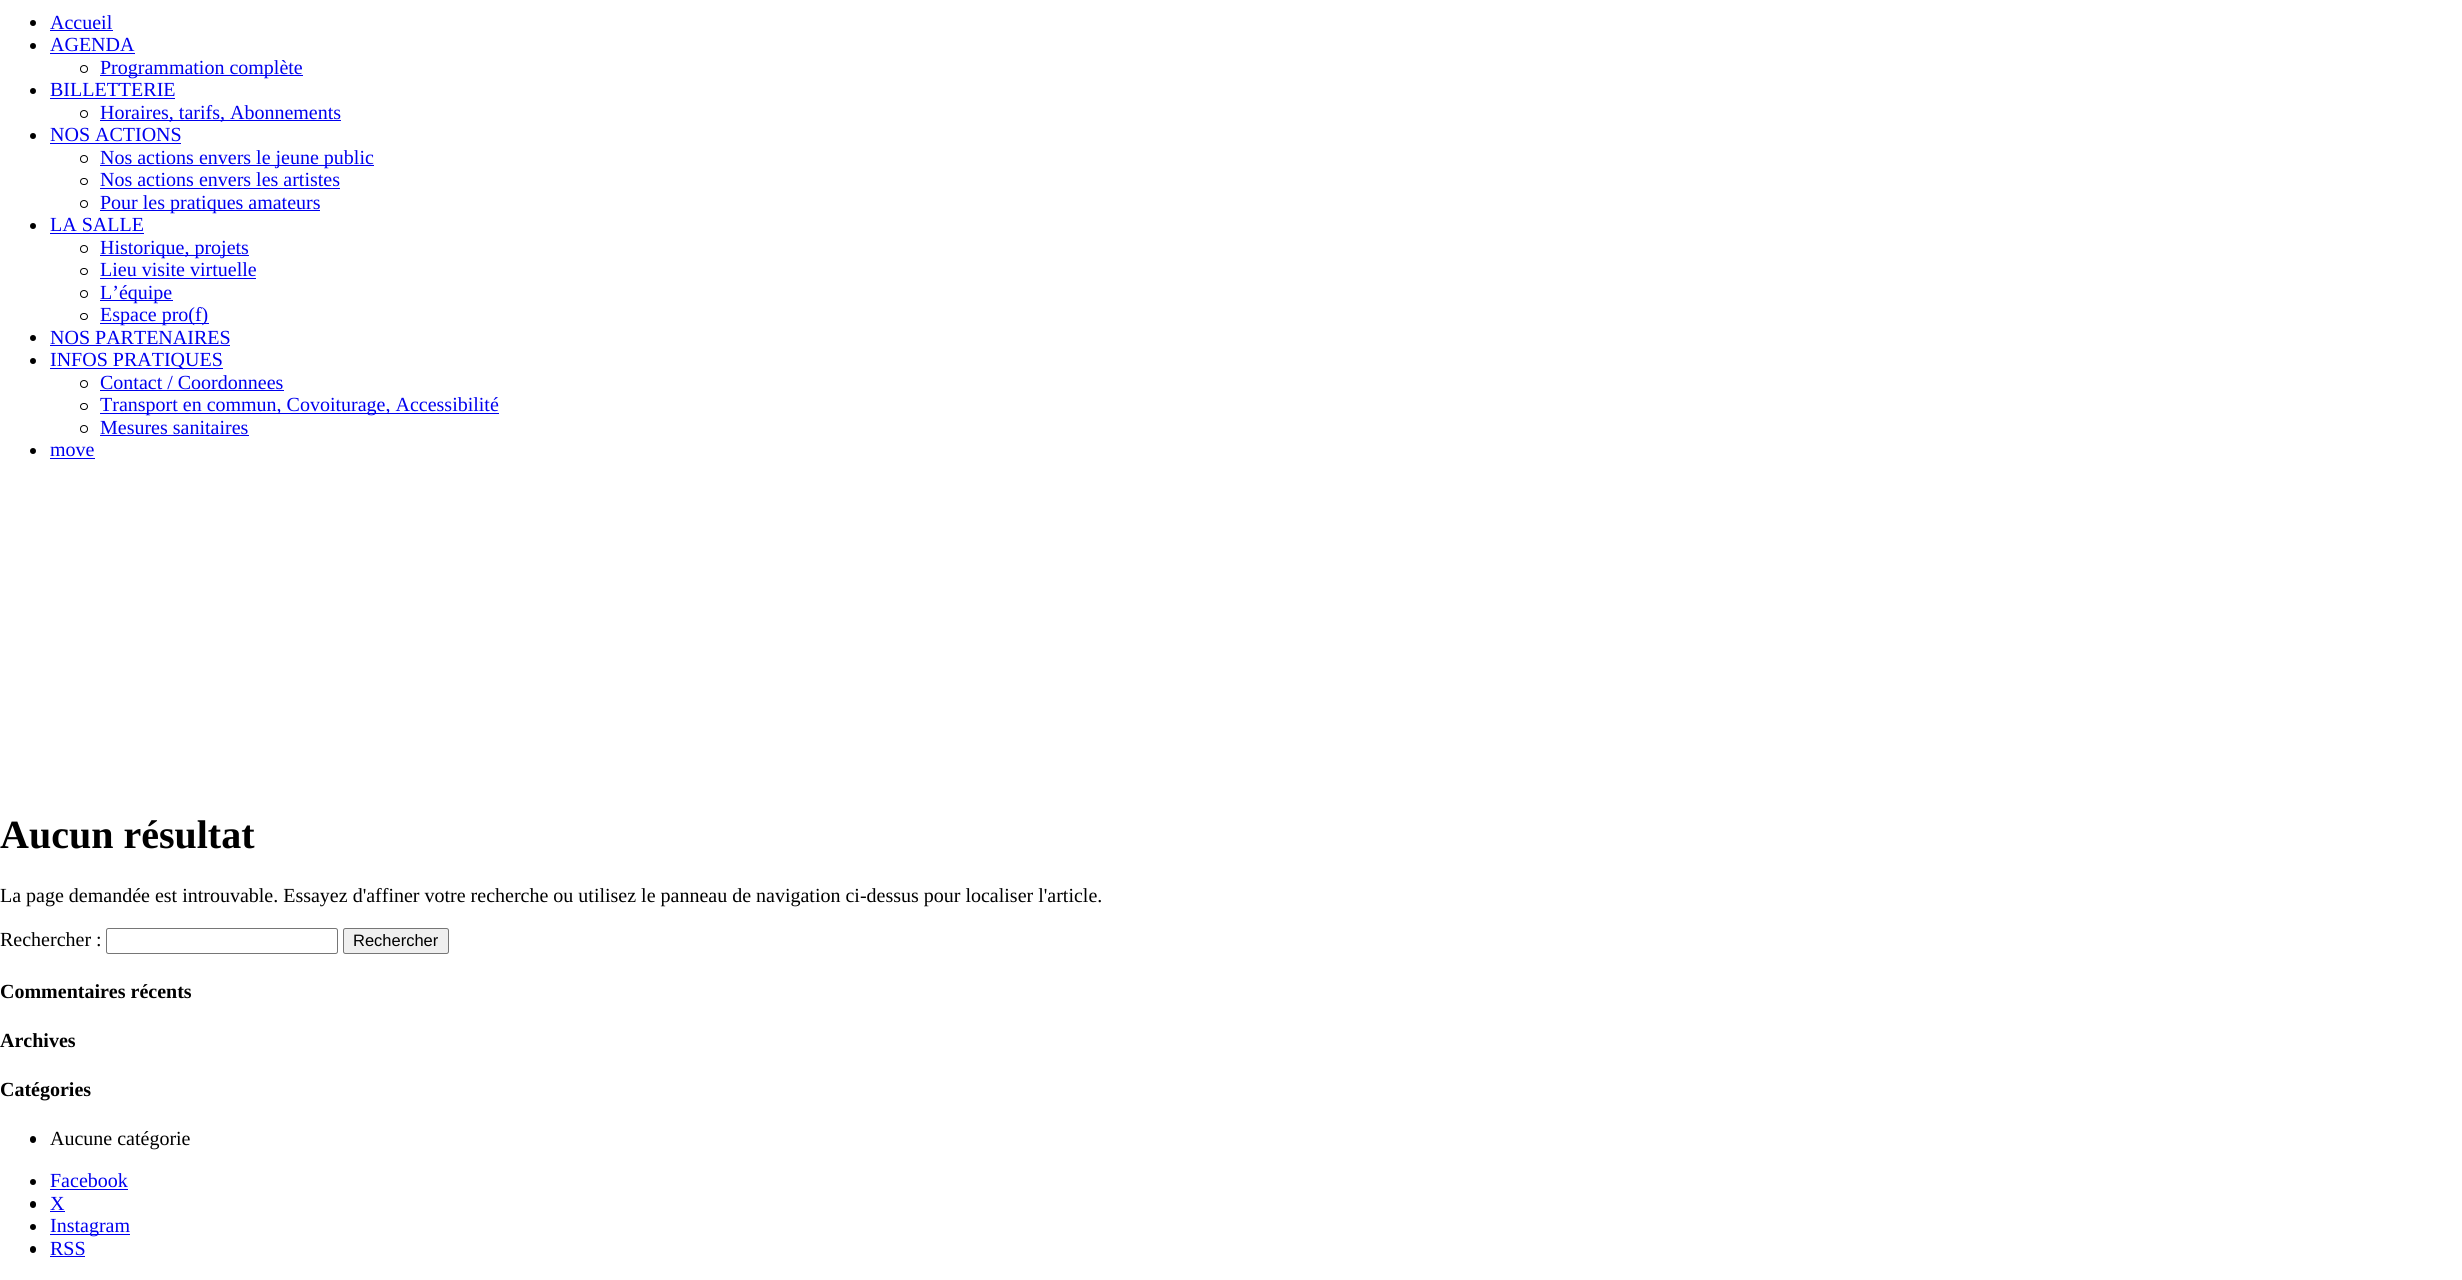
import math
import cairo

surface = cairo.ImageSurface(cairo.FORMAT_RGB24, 2462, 1280)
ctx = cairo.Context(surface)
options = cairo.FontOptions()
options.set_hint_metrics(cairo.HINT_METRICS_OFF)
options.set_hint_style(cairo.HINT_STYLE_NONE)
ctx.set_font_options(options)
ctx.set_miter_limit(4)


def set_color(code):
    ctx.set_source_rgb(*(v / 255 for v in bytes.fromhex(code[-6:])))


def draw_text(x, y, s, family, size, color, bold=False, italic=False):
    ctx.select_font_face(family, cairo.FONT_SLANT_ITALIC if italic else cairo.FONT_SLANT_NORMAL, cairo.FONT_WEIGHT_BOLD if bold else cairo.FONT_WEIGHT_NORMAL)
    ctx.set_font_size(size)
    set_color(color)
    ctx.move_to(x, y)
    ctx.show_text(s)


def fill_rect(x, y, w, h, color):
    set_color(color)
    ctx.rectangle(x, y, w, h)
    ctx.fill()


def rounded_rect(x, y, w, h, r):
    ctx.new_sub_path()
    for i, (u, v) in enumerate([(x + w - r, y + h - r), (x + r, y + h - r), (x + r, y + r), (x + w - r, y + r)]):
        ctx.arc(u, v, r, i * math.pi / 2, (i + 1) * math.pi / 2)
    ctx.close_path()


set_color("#ffffff")
ctx.paint()
set_color("#000000")
ctx.arc(33, 23, 3, 0, 2 * math.pi)
ctx.fill()
draw_text(50, 29, "Accueil", "Liberation Serif", 20, "#0000ee")
fill_rect(50, 30, 63, 1, "#0000ee")
set_color("#000000")
ctx.new_path()
ctx.arc(33, 46, 3, 0, 2 * math.pi)
ctx.fill()
draw_text(50, 51, "AGENDA", "Liberation Serif", 20, "#0000ee")
fill_rect(50, 53, 85, 1, "#0000ee")
ctx.new_path()
ctx.arc(84, 69, 3.5, 0, 2 * math.pi)
set_color("#000000")
ctx.set_line_width(1)
ctx.stroke()
fill_rect(100, 75, 203, 1, "#0000ee")
draw_text(100, 74, "Programmation complète", "Liberation Serif", 20, "#0000ee")
set_color("#000000")
ctx.new_path()
ctx.arc(33, 91, 3, 0, 2 * math.pi)
ctx.fill()
draw_text(50, 96, "BILLETTERIE", "Liberation Serif", 20, "#0000ee")
fill_rect(50, 98, 125, 1, "#0000ee")
ctx.new_path()
ctx.arc(84, 114, 3.5, 0, 2 * math.pi)
set_color("#000000")
ctx.stroke()
fill_rect(100, 120, 241, 1, "#0000ee")
draw_text(100, 119, "Horaires, tarifs, Abonnements", "Liberation Serif", 20, "#0000ee")
set_color("#000000")
ctx.new_path()
ctx.arc(33, 136, 3, 0, 2 * math.pi)
ctx.fill()
draw_text(50, 141, "NOS ACTIONS", "Liberation Serif", 20, "#0000ee")
fill_rect(50, 143, 131, 1, "#0000ee")
ctx.new_path()
ctx.arc(84, 159, 3.5, 0, 2 * math.pi)
set_color("#000000")
ctx.stroke()
fill_rect(100, 165, 274, 1, "#0000ee")
draw_text(100, 164, "Nos actions envers le jeune public", "Liberation Serif", 20, "#0000ee")
rounded_rect(80.5, 178.5, 7, 6, 3)
set_color("#000000")
ctx.stroke()
draw_text(100, 186, "Nos actions envers les artistes", "Liberation Serif", 20, "#0000ee")
fill_rect(100, 188, 240, 1, "#0000ee")
ctx.new_path()
ctx.arc(84, 204, 3.5, 0, 2 * math.pi)
set_color("#000000")
ctx.stroke()
fill_rect(100, 210, 220, 1, "#0000ee")
draw_text(100, 209, "Pour les pratiques amateurs", "Liberation Serif", 20, "#0000ee")
set_color("#000000")
ctx.new_path()
ctx.arc(33, 226, 3, 0, 2 * math.pi)
ctx.fill()
draw_text(50, 231, "LA SALLE", "Liberation Serif", 20, "#0000ee")
fill_rect(50, 233, 94, 1, "#0000ee")
ctx.new_path()
ctx.arc(84, 249, 3.5, 0, 2 * math.pi)
set_color("#000000")
ctx.stroke()
fill_rect(100, 255, 149, 1, "#0000ee")
draw_text(100, 254, "Historique, projets", "Liberation Serif", 20, "#0000ee")
rounded_rect(80.5, 268.5, 7, 6, 3)
set_color("#000000")
ctx.stroke()
draw_text(100, 276, "Lieu visite virtuelle", "Liberation Serif", 20, "#0000ee")
fill_rect(100, 278, 156, 1, "#0000ee")
ctx.new_path()
ctx.arc(84, 294, 3.5, 0, 2 * math.pi)
set_color("#000000")
ctx.stroke()
fill_rect(100, 300, 73, 1, "#0000ee")
draw_text(100, 299, "L’équipe", "Liberation Serif", 20, "#0000ee")
rounded_rect(80.5, 313.5, 7, 6, 3)
set_color("#000000")
ctx.stroke()
fill_rect(100, 323, 109, 1, "#0000ee")
draw_text(100, 321, "Espace pro(f)", "Liberation Serif", 20, "#0000ee")
set_color("#000000")
ctx.new_path()
ctx.arc(33, 338, 3, 0, 2 * math.pi)
ctx.fill()
draw_text(50, 344, "NOS PARTENAIRES", "Liberation Serif", 20, "#0000ee")
fill_rect(50, 345, 180, 1, "#0000ee")
set_color("#000000")
ctx.new_path()
ctx.arc(33, 361, 3, 0, 2 * math.pi)
ctx.fill()
fill_rect(50, 368, 173, 1, "#0000ee")
draw_text(50, 366, "INFOS PRATIQUES", "Liberation Serif", 20, "#0000ee")
ctx.new_path()
ctx.arc(84, 384, 3.5, 0, 2 * math.pi)
set_color("#000000")
ctx.stroke()
draw_text(100, 389, "Contact / Coordonnees", "Liberation Serif", 20, "#0000ee")
fill_rect(100, 390, 184, 1, "#0000ee")
rounded_rect(80.5, 403.5, 7, 6, 3)
set_color("#000000")
ctx.stroke()
fill_rect(100, 413, 399, 1, "#0000ee")
draw_text(100, 411, "Transport en commun, Covoiturage, Accessibilité", "Liberation Serif", 20, "#0000ee")
ctx.new_path()
ctx.arc(84, 429, 3.5, 0, 2 * math.pi)
set_color("#000000")
ctx.stroke()
draw_text(100, 434, "Mesures sanitaires", "Liberation Serif", 20, "#0000ee")
fill_rect(100, 435, 149, 1, "#0000ee")
set_color("#000000")
ctx.new_path()
ctx.arc(33, 451, 3, 0, 2 * math.pi)
ctx.fill()
draw_text(50, 456, "move", "Liberation Serif", 20, "#0000ee")
fill_rect(50, 458, 45, 1, "#0000ee")
draw_text(0, 848, "Aucun résultat", "Liberation Serif", 40, "#000000", bold=True)
draw_text(0, 902, "La page demandée est introuvable. Essayez d'affiner votre recherche ou utilisez le panneau de navigation ci-dessus pour localiser l'article.", "Liberation Serif", 20, "#000000")
draw_text(0, 946, "Rechercher :", "Liberation Serif", 20, "#000000")
rounded_rect(106.5, 928.5, 231, 25, 2)
set_color("#767676")
ctx.stroke()
set_color("#efefef")
rounded_rect(343.5, 928.5, 105, 25, 2)
ctx.fill_preserve()
set_color("#767676")
ctx.stroke()
draw_text(353, 946, "Rechercher", "Liberation Sans", 16.5, "#000000")
draw_text(0, 998, "Commentaires récents", "Liberation Serif", 20, "#000000", bold=True)
draw_text(0, 1047, "Archives", "Liberation Serif", 20, "#000000", bold=True)
draw_text(0, 1096, "Catégories", "Liberation Serif", 20, "#000000", bold=True)
rounded_rect(30, 1136, 6, 7, 3)
ctx.fill()
draw_text(50, 1145, "Aucune catégorie", "Liberation Serif", 20, "#000000")
ctx.new_path()
ctx.arc(33, 1182, 3, 0, 2 * math.pi)
ctx.fill()
draw_text(50, 1187, "Facebook", "Liberation Serif", 20, "#0000ee")
fill_rect(50, 1189, 78, 1, "#0000ee")
set_color("#000000")
rounded_rect(30, 1201, 6, 7, 3)
ctx.fill()
draw_text(50, 1210, "X", "Liberation Serif", 20, "#0000ee")
fill_rect(50, 1211, 15, 1, "#0000ee")
set_color("#000000")
ctx.new_path()
ctx.arc(33, 1227, 3, 0, 2 * math.pi)
ctx.fill()
fill_rect(50, 1234, 80, 1, "#0000ee")
draw_text(50, 1232, "Instagram", "Liberation Serif", 20, "#0000ee")
set_color("#000000")
rounded_rect(30, 1246, 6, 7, 3)
ctx.fill()
draw_text(50, 1255, "RSS", "Liberation Serif", 20, "#0000ee")
fill_rect(50, 1256, 35, 1, "#0000ee")
surface.write_to_png("output.png")
